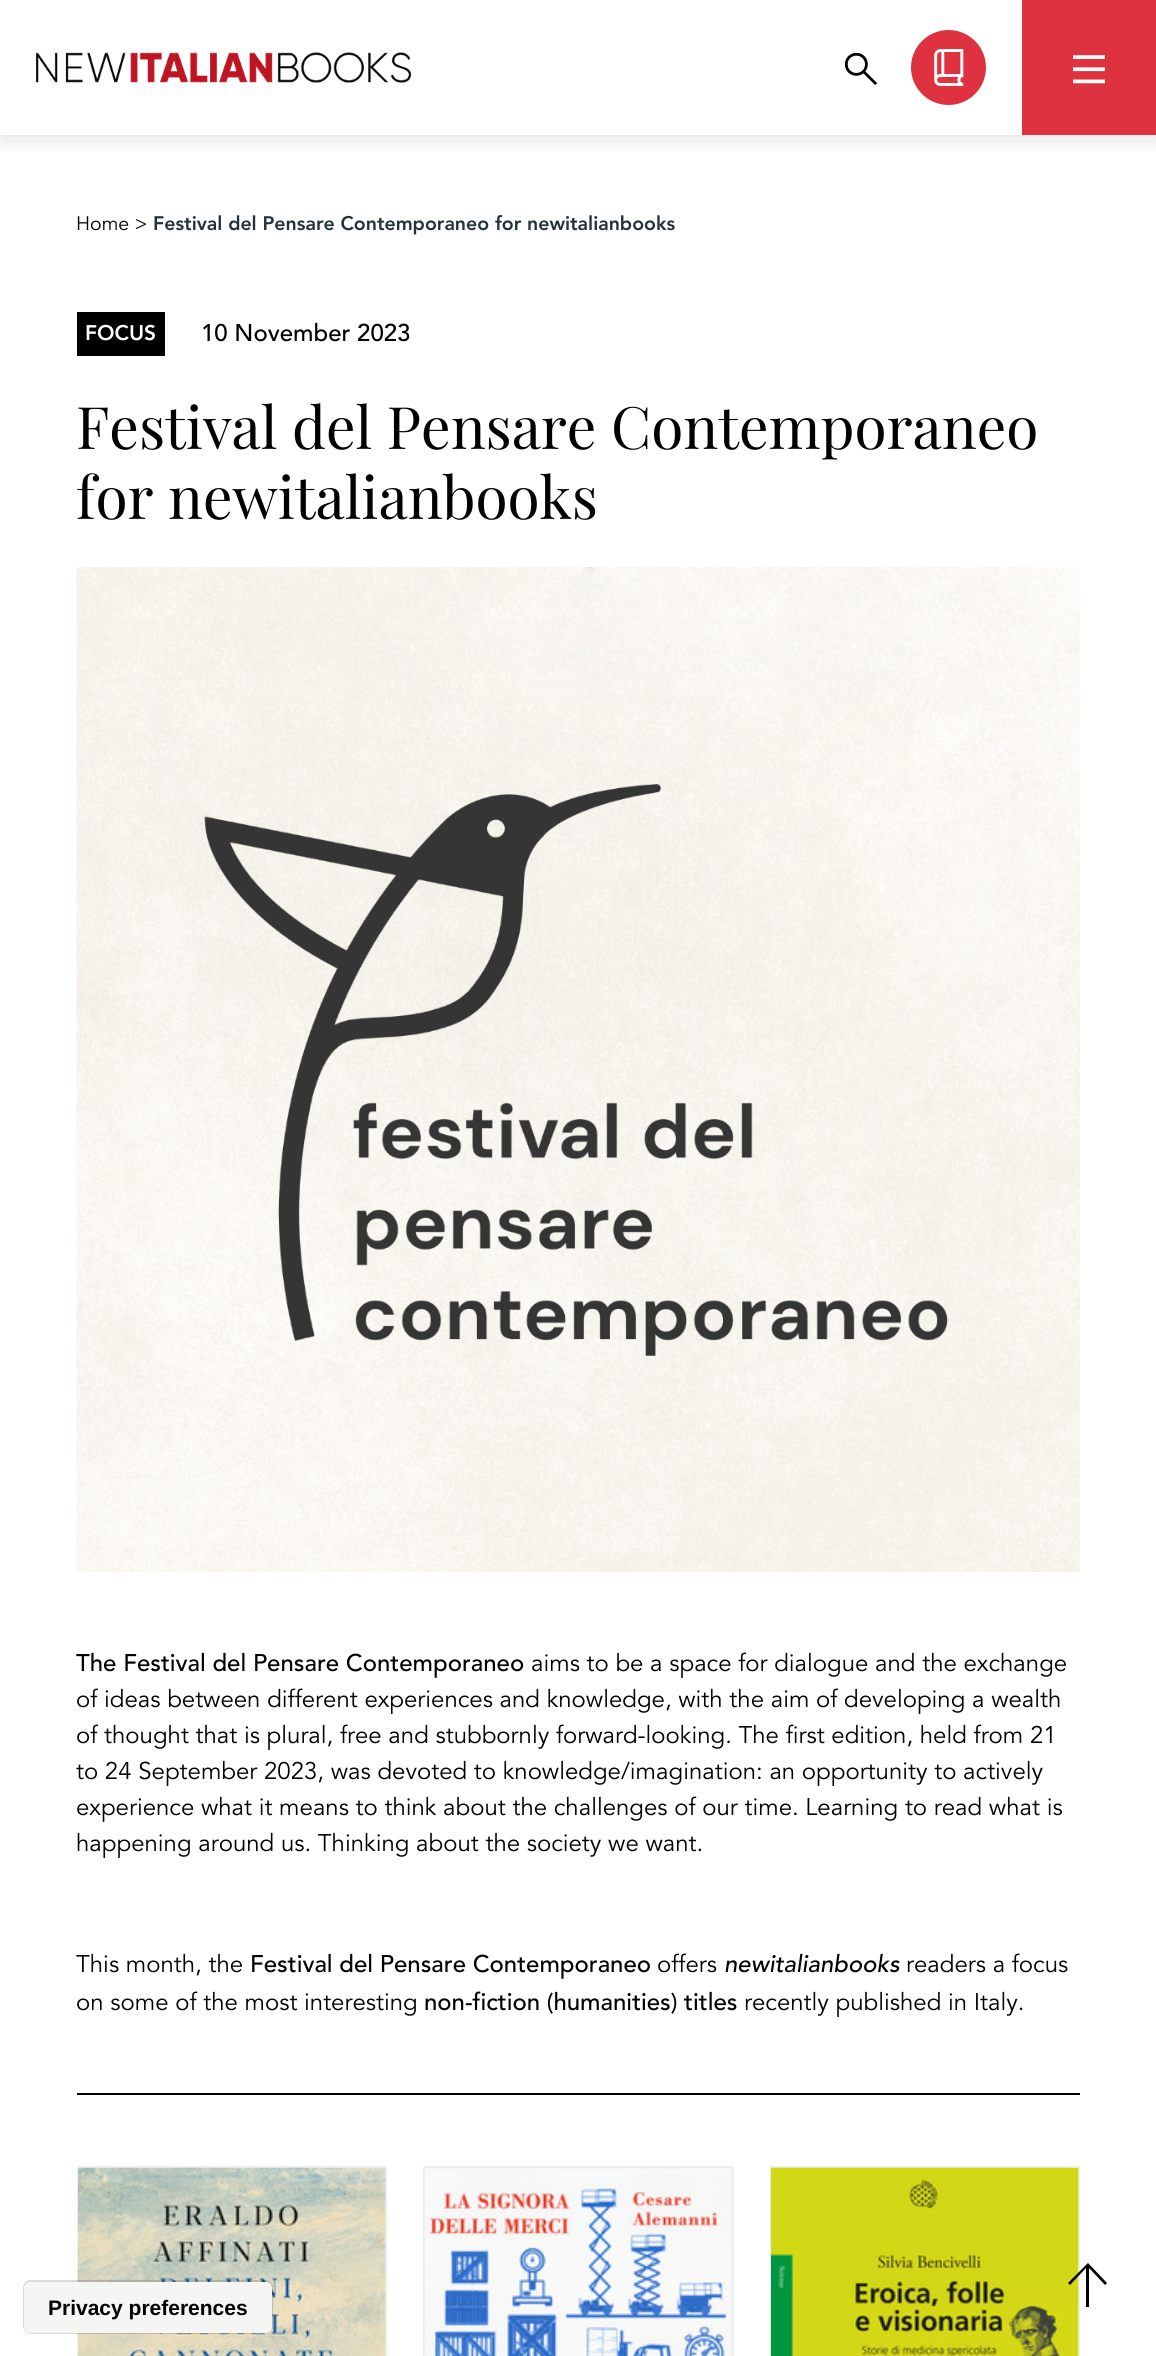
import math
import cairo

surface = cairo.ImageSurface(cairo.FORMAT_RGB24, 1156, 2356)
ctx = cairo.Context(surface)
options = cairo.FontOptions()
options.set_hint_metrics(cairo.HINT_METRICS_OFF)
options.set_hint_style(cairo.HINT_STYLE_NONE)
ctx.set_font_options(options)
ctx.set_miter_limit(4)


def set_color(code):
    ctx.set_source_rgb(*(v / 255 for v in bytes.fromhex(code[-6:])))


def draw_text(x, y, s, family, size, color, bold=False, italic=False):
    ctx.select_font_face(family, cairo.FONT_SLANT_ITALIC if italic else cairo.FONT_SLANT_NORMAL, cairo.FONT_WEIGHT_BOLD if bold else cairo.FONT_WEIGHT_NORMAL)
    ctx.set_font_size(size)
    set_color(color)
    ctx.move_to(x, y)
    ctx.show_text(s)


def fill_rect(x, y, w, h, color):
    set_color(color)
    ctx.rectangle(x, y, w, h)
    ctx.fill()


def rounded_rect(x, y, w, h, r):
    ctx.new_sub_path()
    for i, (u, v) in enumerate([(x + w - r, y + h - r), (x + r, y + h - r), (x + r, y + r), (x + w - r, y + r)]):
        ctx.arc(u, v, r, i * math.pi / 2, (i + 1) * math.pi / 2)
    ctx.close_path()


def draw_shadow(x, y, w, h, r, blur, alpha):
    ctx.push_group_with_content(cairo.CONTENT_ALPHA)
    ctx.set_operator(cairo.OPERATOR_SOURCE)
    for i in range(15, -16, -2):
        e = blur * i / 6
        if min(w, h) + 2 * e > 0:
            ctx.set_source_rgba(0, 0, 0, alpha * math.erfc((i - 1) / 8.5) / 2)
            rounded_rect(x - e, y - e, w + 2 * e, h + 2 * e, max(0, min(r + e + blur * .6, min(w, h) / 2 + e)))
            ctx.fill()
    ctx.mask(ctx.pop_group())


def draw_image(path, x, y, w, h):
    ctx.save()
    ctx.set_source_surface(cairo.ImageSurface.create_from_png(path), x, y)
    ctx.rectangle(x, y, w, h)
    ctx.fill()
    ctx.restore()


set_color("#ffffff")
ctx.paint()
ctx.save()
ctx.rectangle(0, 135, 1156, 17)
ctx.clip()
set_color("#000000")
draw_shadow(0, 0, 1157, 135, 0, 15, 0.15)
ctx.restore()
draw_image("assets/img1.png", 36, 52, 375, 31)
draw_image("assets/img2.png", 845, 53, 32, 32)
set_color("#de3241")
ctx.arc(948.5, 67.5, 36.5, 0, 2 * math.pi)
ctx.fill_preserve()
ctx.stroke()
draw_image("assets/img3.png", 934, 49, 30, 37)
fill_rect(1022, 0, 134, 135, "#de3241")
draw_image("assets/img4.png", 1073, 55, 32, 29)
draw_text(76, 230, "Home >", "Avenir", 19.5, "#000000")
draw_text(153, 230, "Festival del Pensare Contemporaneo for newitalianbooks", "Avenir Black", 19.5, "#263238")
fill_rect(77, 312, 88, 44, "#000000")
draw_text(85, 340, "FOCUS", "Avenir Black", 21, "#ffffff")
draw_text(201, 341, "10 November 2023", "Avenir Medium", 24, "#000000")
draw_text(76, 449, "Festival del Pensare Contemporaneo", "Playfair Display", 58.5, "#000000")
draw_text(76, 519, "for newitalianbooks", "Playfair Display", 58.5, "#000000")
draw_image("assets/img5.png", 76, 567, 1004, 1005)
draw_text(76, 1671, "The Festival del Pensare Contemporaneo", "Avenir Medium", 24, "#000000")
draw_text(531, 1671, "aims to be a space for dialogue and the exchange", "Avenir", 24, "#000000")
draw_text(76, 1707, "of ideas between different experiences and knowledge, with the aim of developing a wealth", "Avenir", 24, "#000000")
draw_text(76, 1743, "of thought that is plural, free and stubbornly forward-looking. The first edition, held from 21", "Avenir", 24, "#000000")
draw_text(76, 1779, "to 24 September 2023, was devoted to knowledge/imagination: an opportunity to actively", "Avenir", 24, "#000000")
draw_text(76, 1815, "experience what it means to think about the challenges of our time. Learning to read what is", "Avenir", 24, "#000000")
draw_text(76, 1851, "happening around us. Thinking about the society we want.", "Avenir", 24, "#000000")
draw_text(76, 1972, "This month, the", "Avenir", 24, "#000000")
draw_text(250, 1972, "Festival del Pensare Contemporaneo", "Avenir Medium", 24, "#000000")
draw_text(657, 1972, "offers", "Avenir", 24, "#000000")
draw_text(724, 1972, "newitalianbooks", "Avenir Medium", 24, "#000000", italic=True)
draw_text(906, 1972, "readers a focus", "Avenir", 24, "#000000")
draw_text(76, 2010, "on some of the most interesting", "Avenir", 24, "#000000")
draw_text(424, 2010, "non-fiction (humanities) titles", "Avenir Medium", 24, "#000000")
draw_text(744, 2010, "recently published in Italy.", "Avenir", 24, "#000000")
fill_rect(77, 2093, 1003, 2, "#000000")
ctx.rectangle(78, 2167, 308, 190)
set_color("#efefef")
ctx.stroke()
draw_image("assets/img6.png", 78, 2167, 308, 189)
set_color("#f6f6f6")
ctx.rectangle(424, 2167, 309, 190)
ctx.fill_preserve()
set_color("#efefef")
ctx.stroke()
draw_image("assets/img7.png", 425, 2170, 305, 186)
ctx.rectangle(771, 2167, 308, 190)
ctx.stroke()
draw_image("assets/img8.png", 771, 2167, 308, 189)
set_color("#000000")
ctx.new_path()
ctx.move_to(1086, 2307)
ctx.line_to(1086, 2268)
ctx.line_to(1070, 2285)
ctx.line_to(1068, 2283)
ctx.line_to(1088, 2263)
ctx.line_to(1107, 2283)
ctx.line_to(1105, 2285)
ctx.line_to(1089, 2268)
ctx.line_to(1089, 2307)
ctx.close_path()
ctx.fill()
rounded_rect(24, 2281, 248, 52, 7)
ctx.set_source_rgba(0, 0, 0, 0.15)
ctx.stroke()
set_color("#f5f5f4")
rounded_rect(24, 2282, 248, 51, 6)
ctx.fill()
draw_text(48, 2315, "Privacy preferences", "Liberation Sans", 21, "#000000", bold=True)
surface.write_to_png("output.png")
